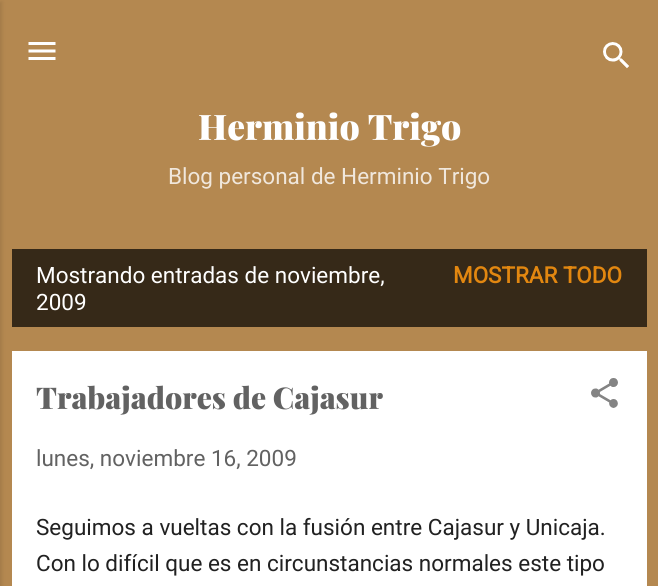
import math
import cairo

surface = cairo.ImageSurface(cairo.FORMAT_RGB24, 658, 586)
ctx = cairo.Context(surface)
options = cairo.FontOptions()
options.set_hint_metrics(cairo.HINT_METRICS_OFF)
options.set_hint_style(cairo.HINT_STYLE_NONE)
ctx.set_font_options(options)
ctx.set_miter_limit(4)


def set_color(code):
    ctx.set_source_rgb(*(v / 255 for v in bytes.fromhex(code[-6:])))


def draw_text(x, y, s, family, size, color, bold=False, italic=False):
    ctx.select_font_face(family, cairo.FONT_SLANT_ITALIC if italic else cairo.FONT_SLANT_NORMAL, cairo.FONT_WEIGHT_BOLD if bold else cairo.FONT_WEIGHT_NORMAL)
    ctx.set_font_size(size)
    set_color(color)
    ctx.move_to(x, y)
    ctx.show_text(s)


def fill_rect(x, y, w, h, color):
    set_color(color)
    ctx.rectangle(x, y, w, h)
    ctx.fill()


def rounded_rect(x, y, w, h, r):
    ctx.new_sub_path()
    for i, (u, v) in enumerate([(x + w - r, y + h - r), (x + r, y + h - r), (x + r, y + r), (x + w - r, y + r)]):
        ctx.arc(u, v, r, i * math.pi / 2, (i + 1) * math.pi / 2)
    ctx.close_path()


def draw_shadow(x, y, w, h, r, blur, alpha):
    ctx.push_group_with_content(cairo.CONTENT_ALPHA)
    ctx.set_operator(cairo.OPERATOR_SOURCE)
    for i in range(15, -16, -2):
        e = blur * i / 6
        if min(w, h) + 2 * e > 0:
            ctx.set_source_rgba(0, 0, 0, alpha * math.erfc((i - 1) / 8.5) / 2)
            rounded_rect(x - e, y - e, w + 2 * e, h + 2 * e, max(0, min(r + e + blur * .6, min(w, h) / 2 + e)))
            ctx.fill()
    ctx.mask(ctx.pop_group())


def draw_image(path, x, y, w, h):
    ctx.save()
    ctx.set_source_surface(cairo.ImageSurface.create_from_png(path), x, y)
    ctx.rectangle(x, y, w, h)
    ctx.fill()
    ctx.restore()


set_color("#b48850")
ctx.paint()
set_color("#000000")
draw_shadow(-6, 2, 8, 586, 0, 2, 0.1)
draw_image("assets/img1.png", 28, 42, 28, 18)
draw_image("assets/img2.png", 603, 42, 26, 27)
draw_text(198, 140, "Herminio Trigo", "Playfair Display Black", 35.25, "#ffffff")
draw_text(168, 184, "Blog personal de Herminio Trigo", "Roboto", 22.5, "#f0e7dc")
fill_rect(12, 249, 635, 78, "#362918")
draw_text(36, 283, "Mostrando entradas de noviembre,", "Roboto", 22.5, "#ffffff")
draw_text(36, 310, "2009", "Roboto", 22.5, "#ffffff")
draw_text(453, 283, "MOSTRAR TODO", "Roboto", 22.5, "#e28710", bold=True)
fill_rect(12, 351, 635, 235, "#ffffff")
draw_text(36, 409, "Trabajadores de Cajasur", "Playfair Display Black", 30, "#626262")
draw_image("assets/img3.png", 591, 378, 27, 30)
draw_text(36, 466, "lunes, noviembre 16, 2009", "Roboto", 22.5, "#626262")
draw_text(36, 535, "Seguimos a vueltas con la fusión entre Cajasur y Unicaja.", "Roboto", 22.5, "#212121")
draw_text(36, 571, "Con lo difícil que es en circunstancias normales este tipo", "Roboto", 22.5, "#212121")
surface.write_to_png("output.png")
